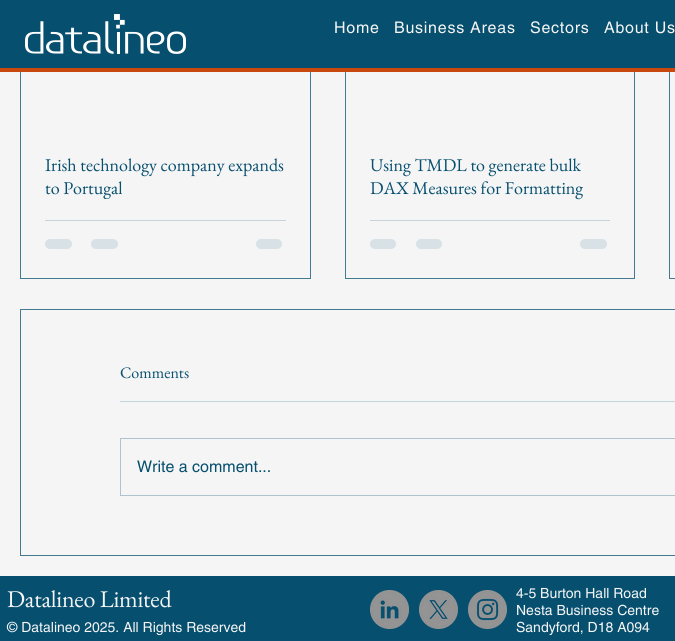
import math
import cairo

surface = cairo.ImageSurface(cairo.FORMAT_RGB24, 675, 641)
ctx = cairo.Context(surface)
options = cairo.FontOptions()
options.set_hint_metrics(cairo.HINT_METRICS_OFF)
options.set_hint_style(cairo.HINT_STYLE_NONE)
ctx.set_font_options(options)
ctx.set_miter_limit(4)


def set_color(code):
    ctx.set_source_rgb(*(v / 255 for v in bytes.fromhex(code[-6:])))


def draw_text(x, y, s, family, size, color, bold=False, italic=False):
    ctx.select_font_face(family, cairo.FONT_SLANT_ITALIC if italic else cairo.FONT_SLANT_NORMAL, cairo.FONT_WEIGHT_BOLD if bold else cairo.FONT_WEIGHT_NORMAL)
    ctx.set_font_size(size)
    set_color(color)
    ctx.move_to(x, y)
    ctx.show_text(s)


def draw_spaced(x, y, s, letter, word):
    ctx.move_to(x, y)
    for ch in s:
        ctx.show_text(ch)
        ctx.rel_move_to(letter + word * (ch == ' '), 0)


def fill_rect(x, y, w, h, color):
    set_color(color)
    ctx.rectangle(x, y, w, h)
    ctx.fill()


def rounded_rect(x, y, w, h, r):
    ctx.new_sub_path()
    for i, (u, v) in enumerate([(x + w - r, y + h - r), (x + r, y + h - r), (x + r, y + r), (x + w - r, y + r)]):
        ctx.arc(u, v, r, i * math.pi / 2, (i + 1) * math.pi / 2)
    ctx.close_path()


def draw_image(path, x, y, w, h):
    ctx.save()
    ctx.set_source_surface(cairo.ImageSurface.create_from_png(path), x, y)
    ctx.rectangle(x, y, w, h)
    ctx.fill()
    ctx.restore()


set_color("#f5f5f5")
ctx.paint()
ctx.rectangle(20.5, -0.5, 290, 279)
set_color("#437991")
ctx.set_line_width(1)
ctx.stroke()
ctx.rectangle(345.5, -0.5, 289, 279)
ctx.stroke()
ctx.rectangle(669.5, -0.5, 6, 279)
ctx.stroke()
fill_rect(0, 68, 675, 4, "#c9480e")
fill_rect(0, 0, 675, 68, "#074f6f")
draw_image("assets/img1.png", 25, 14, 161, 40)
ctx.select_font_face("helvetica")
ctx.set_font_size(16)
set_color("#f5f5f5")
draw_spaced(334, 33, "Home", 0.75, 0)
draw_spaced(394, 33, "Business Areas", 0.75, 0)
draw_spaced(530, 33, "Sectors", 0.75, 0)
draw_spaced(604, 33, "About Us", 0.75, 0)
draw_text(45, 171, "Irish technology company expands", "EB Garamond", 18, "#074f6f")
ctx.save()
ctx.rectangle(45, 153, 241, 46)
ctx.clip()
draw_text(45, 194, "to Portugal", "EB Garamond", 18, "#074f6f")
ctx.restore()
fill_rect(45, 220, 241, 1, "#c5d4da")
set_color("#d8e1e5")
rounded_rect(45, 239, 27, 10, 5)
ctx.fill()
rounded_rect(91, 239, 27, 10, 5)
ctx.fill()
rounded_rect(256, 239, 26, 10, 5)
ctx.fill()
draw_text(370, 171, "Using TMDL to generate bulk", "EB Garamond", 18, "#074f6f")
draw_text(370, 194, "DAX Measures for Formatting", "EB Garamond", 18, "#074f6f")
fill_rect(370, 220, 240, 1, "#c5d4da")
set_color("#d8e1e5")
rounded_rect(370, 239, 26, 10, 5)
ctx.fill()
rounded_rect(416, 239, 26, 10, 5)
ctx.fill()
rounded_rect(580, 239, 27, 10, 5)
ctx.fill()
ctx.rectangle(20.5, 309.5, 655, 246)
set_color("#437991")
ctx.stroke()
draw_text(120, 378, "Comments", "EB Garamond", 16, "#074f6f")
fill_rect(120, 401, 555, 1, "#c5d4da")
ctx.rectangle(120.5, 438.5, 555, 57)
set_color("#aec3cd")
ctx.stroke()
draw_text(137, 472, "Write a comment...", "helvetica", 16, "#074f6f")
fill_rect(0, 576, 675, 65, "#074f6f")
ctx.select_font_face("EB Garamond")
ctx.set_font_size(24)
set_color("#f5f5f5")
draw_spaced(7, 607, "Datalineo Limited", -0.25, 0)
draw_image("assets/img2.png", 370, 590, 39, 39)
draw_image("assets/img3.png", 419, 590, 39, 39)
draw_image("assets/img4.png", 468, 590, 39, 39)
draw_text(7, 632, "© Datalineo 2025. All Rights Reserved", "helvetica", 14, "#f5f5f5")
draw_text(516, 598, "4-5 Burton Hall Road", "helvetica", 14, "#f5f5f5")
draw_text(516, 615, "Nesta Business Centre", "helvetica", 14, "#f5f5f5")
draw_text(516, 632, "Sandyford, D18 A094", "helvetica", 14, "#f5f5f5")
surface.write_to_png("output.png")
